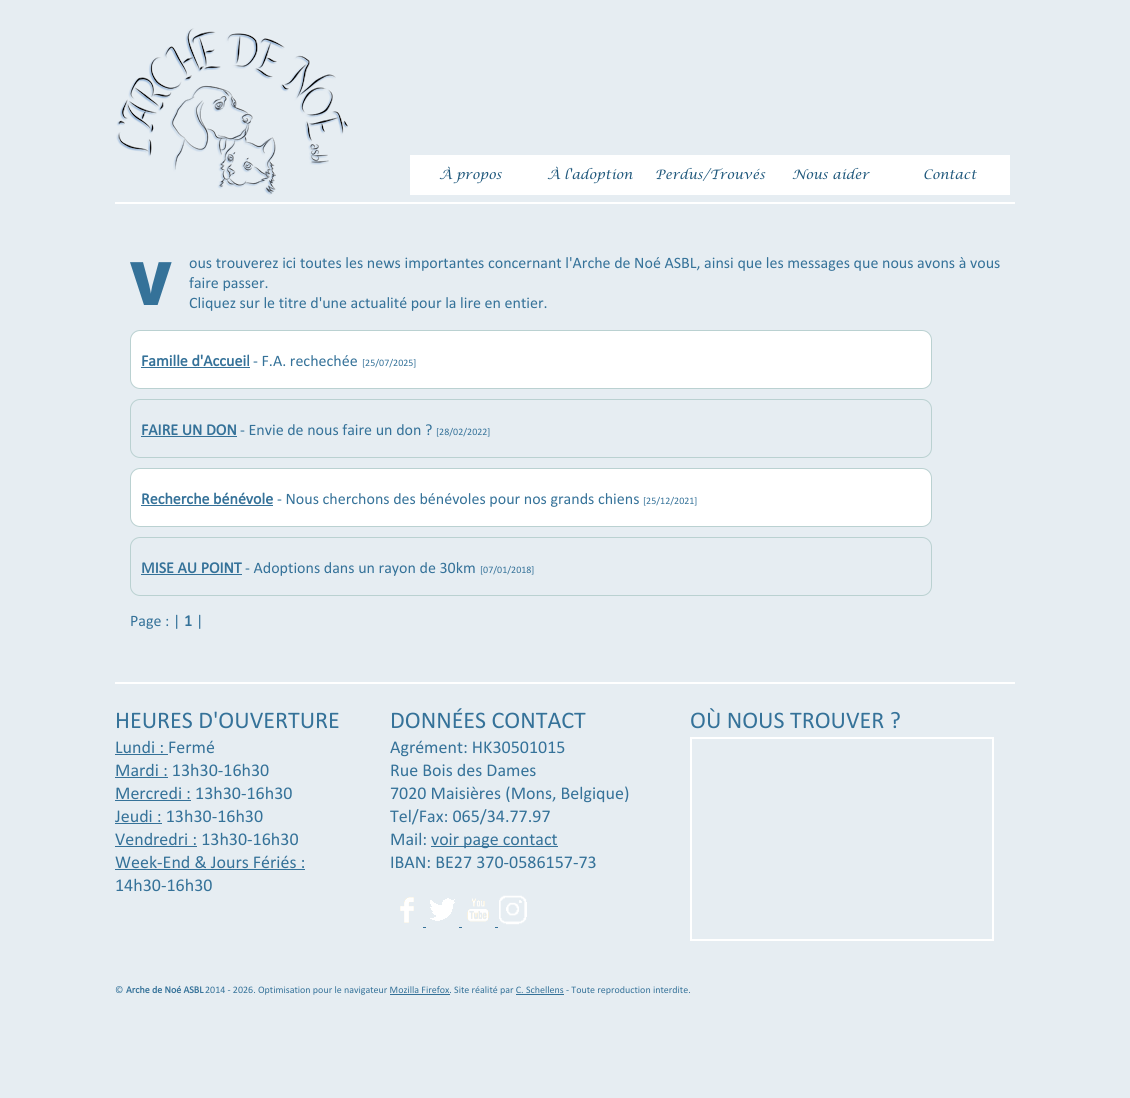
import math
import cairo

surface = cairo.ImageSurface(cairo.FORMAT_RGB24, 1130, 1098)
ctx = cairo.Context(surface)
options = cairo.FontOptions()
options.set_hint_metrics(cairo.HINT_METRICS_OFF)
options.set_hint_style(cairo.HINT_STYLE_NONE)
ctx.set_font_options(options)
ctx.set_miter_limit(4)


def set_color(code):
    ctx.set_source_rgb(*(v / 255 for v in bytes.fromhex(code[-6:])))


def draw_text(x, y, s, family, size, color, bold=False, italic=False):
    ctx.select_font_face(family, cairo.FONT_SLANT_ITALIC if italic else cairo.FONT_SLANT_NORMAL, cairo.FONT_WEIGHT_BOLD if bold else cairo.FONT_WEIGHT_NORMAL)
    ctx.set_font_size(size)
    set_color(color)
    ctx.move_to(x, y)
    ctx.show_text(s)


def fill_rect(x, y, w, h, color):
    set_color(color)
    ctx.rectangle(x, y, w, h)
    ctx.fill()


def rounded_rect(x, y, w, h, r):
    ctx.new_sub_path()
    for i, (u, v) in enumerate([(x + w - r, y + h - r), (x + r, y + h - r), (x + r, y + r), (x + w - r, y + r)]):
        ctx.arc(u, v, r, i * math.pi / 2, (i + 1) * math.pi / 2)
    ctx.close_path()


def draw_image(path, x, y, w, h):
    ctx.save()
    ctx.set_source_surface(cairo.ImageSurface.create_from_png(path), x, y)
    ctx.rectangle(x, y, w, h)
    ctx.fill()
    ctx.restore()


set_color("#e6edf2")
ctx.paint()
fill_rect(115, 202, 900, 2, "#ffffff")
draw_image("assets/img1.png", 116, 28, 232, 167)
fill_rect(410, 155, 600, 40, "#ffffff")
draw_text(439, 179, "À propos", "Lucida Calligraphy", 13, "#1f587c")
draw_text(547, 179, "À l'adoption", "Lucida Calligraphy", 13, "#1f587c")
draw_text(655, 179, "Perdus/Trouvés", "Lucida Calligraphy", 13, "#1f587c")
draw_text(792, 179, "Nous aider", "Lucida Calligraphy", 13, "#1f587c")
draw_text(923, 179, "Contact", "Lucida Calligraphy", 13, "#1f587c")
draw_text(130, 305, "V", "Noto Sans Black", 60, "#357299")
draw_text(189, 268, "ous trouverez ici toutes les news importantes concernant l'Arche de Noé ASBL, ainsi que les messages que nous avons à vous", "Calibri", 16, "#357299")
draw_text(189, 288, "faire passer.", "Calibri", 16, "#357299")
draw_text(189, 308, "Cliquez sur le titre d'une actualité pour la lire en entier.", "Calibri", 16, "#357299")
set_color("#ffffff")
rounded_rect(130.5, 330.5, 801, 58, 9.5)
ctx.fill_preserve()
set_color("#bad1d1")
ctx.set_line_width(1)
ctx.stroke()
draw_text(141, 366, "Famille d'Accueil", "Calibri", 16, "#357299", bold=True)
fill_rect(141, 367, 109, 1, "#357299")
draw_text(253, 366, "- F.A. rechechée", "Calibri", 16, "#357299")
draw_text(362, 366, "[25/07/2025]", "Calibri", 10, "#357299")
rounded_rect(130.5, 399.5, 801, 58, 9.5)
set_color("#bad1d1")
ctx.stroke()
draw_text(141, 435, "FAIRE UN DON", "Calibri", 16, "#357299", bold=True)
fill_rect(141, 436, 96, 1, "#357299")
draw_text(240, 435, "- Envie de nous faire un don ?", "Calibri", 16, "#357299")
draw_text(436, 435, "[28/02/2022]", "Calibri", 10, "#357299")
set_color("#ffffff")
rounded_rect(130.5, 468.5, 801, 58, 9.5)
ctx.fill_preserve()
set_color("#bad1d1")
ctx.stroke()
draw_text(141, 504, "Recherche bénévole", "Calibri", 16, "#357299", bold=True)
fill_rect(141, 505, 132, 1, "#357299")
draw_text(277, 504, "- Nous cherchons des bénévoles pour nos grands chiens", "Calibri", 16, "#357299")
draw_text(643, 504, "[25/12/2021]", "Calibri", 10, "#357299")
rounded_rect(130.5, 537.5, 801, 58, 9.5)
set_color("#bad1d1")
ctx.stroke()
draw_text(141, 573, "MISE AU POINT", "Calibri", 16, "#357299", bold=True)
fill_rect(141, 574, 101, 1, "#357299")
draw_text(245, 573, "- Adoptions dans un rayon de 30km", "Calibri", 16, "#357299")
draw_text(480, 573, "[07/01/2018]", "Calibri", 10, "#357299")
draw_text(130, 626, "Page : |", "Calibri", 16, "#357299")
draw_text(184, 626, "1", "Calibri", 16, "#357299", bold=True)
draw_text(196, 626, "|", "Calibri", 16, "#357299")
fill_rect(115, 682, 900, 2, "#ffffff")
draw_text(115, 728, "HEURES D'OUVERTURE", "Calibri", 24, "#357299")
draw_text(115, 753, "Lundi : Fermé", "Calibri", 18, "#357299")
fill_rect(115, 754, 53, 1, "#357299")
draw_text(115, 776, "Mardi : 13h30-16h30", "Calibri", 18, "#357299")
fill_rect(115, 777, 53, 1, "#357299")
draw_text(115, 799, "Mercredi : 13h30-16h30", "Calibri", 18, "#357299")
fill_rect(115, 800, 76, 1, "#357299")
draw_text(115, 822, "Jeudi : 13h30-16h30", "Calibri", 18, "#357299")
fill_rect(115, 823, 47, 1, "#357299")
draw_text(115, 845, "Vendredri : 13h30-16h30", "Calibri", 18, "#357299")
fill_rect(115, 846, 82, 1, "#357299")
draw_text(115, 868, "Week-End & Jours Fériés :", "Calibri", 18, "#357299")
fill_rect(115, 869, 190, 1, "#357299")
draw_text(115, 891, "14h30-16h30", "Calibri", 18, "#357299")
draw_text(390, 728, "DONNÉES CONTACT", "Calibri", 24, "#357299")
draw_text(390, 753, "Agrément: HK30501015", "Calibri", 18, "#357299")
draw_text(390, 776, "Rue Bois des Dames", "Calibri", 18, "#357299")
draw_text(390, 799, "7020 Maisières (Mons, Belgique)", "Calibri", 18, "#357299")
draw_text(390, 822, "Tel/Fax: 065/34.77.97", "Calibri", 18, "#357299")
draw_text(390, 845, "Mail:", "Calibri", 18, "#357299")
fill_rect(431, 846, 127, 1, "#357299")
draw_text(431, 845, "voir page contact", "Calibri", 18, "#357299")
draw_text(390, 868, "IBAN: BE27 370-0586157-73", "Calibri", 18, "#357299")
draw_image("assets/img2.png", 400, 897, 14, 26)
draw_image("assets/img3.png", 430, 898, 25, 23)
draw_image("assets/img4.png", 467, 898, 22, 24)
draw_image("assets/img5.png", 499, 895, 28, 30)
fill_rect(423, 927, 3, 1, "#357299")
fill_rect(459, 927, 3, 1, "#357299")
fill_rect(495, 927, 3, 1, "#357299")
draw_text(690, 728, "OÙ NOUS TROUVER ?", "Calibri", 24, "#357299")
ctx.rectangle(691, 738, 302, 202)
set_color("#ffffff")
ctx.set_line_width(2)
ctx.stroke()
draw_text(115, 993, "©", "Calibri", 10, "#357299")
draw_text(126, 993, "Arche de Noé ASBL", "Calibri", 10, "#357299", bold=True)
draw_text(205, 993, "2014 - 2026. Optimisation pour le navigateur Mozilla Firefox. Site réalité par C. Schellens - Toute reproduction interdite.", "Calibri", 10, "#357299")
fill_rect(390, 994, 60, 1, "#357299")
fill_rect(516, 994, 48, 1, "#357299")
surface.write_to_png("output.png")
